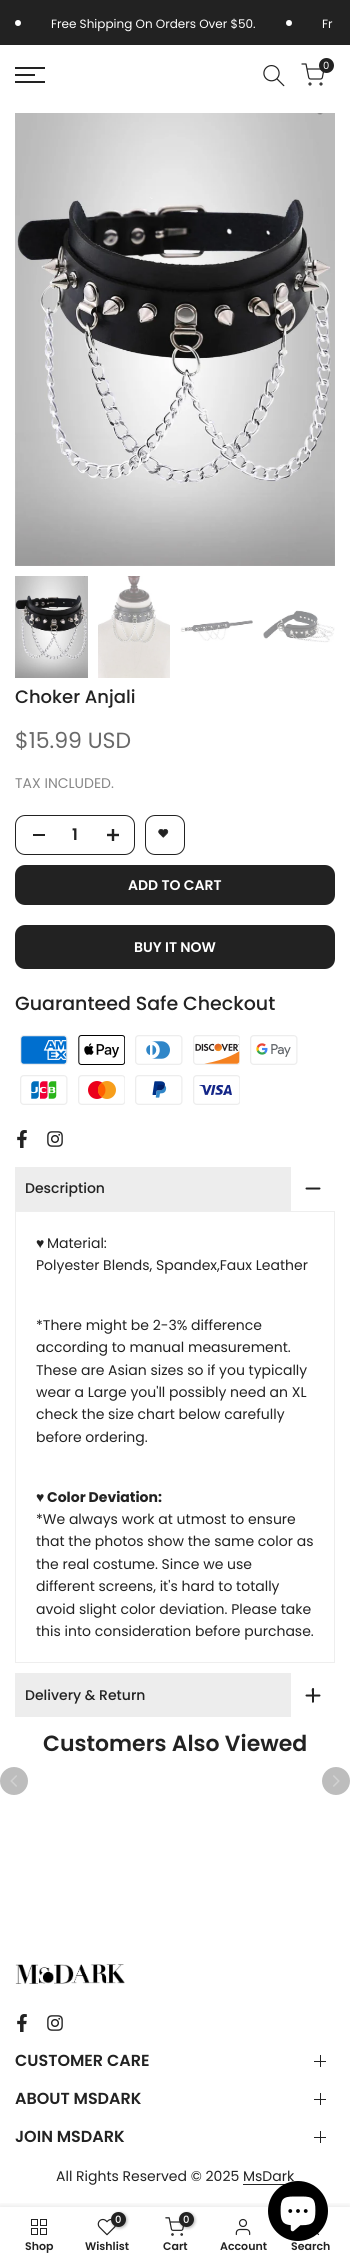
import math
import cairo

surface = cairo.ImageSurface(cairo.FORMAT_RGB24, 350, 2262)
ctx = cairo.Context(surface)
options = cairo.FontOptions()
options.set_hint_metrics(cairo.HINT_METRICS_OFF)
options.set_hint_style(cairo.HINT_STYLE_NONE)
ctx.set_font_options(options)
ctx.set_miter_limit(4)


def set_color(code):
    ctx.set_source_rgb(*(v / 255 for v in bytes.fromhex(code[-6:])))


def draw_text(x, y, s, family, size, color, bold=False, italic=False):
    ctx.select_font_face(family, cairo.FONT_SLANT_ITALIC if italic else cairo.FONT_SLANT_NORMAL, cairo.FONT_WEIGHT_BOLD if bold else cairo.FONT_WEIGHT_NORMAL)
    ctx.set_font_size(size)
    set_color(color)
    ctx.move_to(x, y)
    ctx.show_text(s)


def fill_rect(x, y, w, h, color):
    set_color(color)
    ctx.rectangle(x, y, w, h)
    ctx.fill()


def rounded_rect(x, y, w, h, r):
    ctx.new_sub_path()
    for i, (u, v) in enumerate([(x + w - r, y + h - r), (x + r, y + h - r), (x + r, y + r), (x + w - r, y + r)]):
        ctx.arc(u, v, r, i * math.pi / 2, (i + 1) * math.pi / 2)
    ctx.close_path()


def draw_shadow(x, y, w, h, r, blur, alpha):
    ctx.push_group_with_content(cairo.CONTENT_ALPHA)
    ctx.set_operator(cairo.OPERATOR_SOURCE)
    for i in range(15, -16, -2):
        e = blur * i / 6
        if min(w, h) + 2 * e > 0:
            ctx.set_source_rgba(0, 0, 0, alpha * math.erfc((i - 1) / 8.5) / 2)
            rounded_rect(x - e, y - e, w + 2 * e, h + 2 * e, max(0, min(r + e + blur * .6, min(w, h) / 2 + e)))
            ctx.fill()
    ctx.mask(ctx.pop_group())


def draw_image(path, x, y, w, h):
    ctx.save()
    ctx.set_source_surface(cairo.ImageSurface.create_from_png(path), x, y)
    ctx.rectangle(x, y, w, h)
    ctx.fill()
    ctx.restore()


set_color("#ffffff")
ctx.paint()
fill_rect(0, 0, 350, 45, "#222222")
set_color("#ffffff")
ctx.arc(18, 23, 3, 0, 2 * math.pi)
ctx.fill()
draw_text(51, 28, "Free Shipping On Orders Over $50.", "Poppins", 12, "#ffffff")
ctx.new_path()
ctx.arc(289, 23, 3, 0, 2 * math.pi)
ctx.fill()
draw_text(322, 28, "Fr", "Poppins", 12, "#ffffff")
draw_image("assets/img1.png", 263, 65, 22, 22)
draw_image("assets/img2.png", 301, 63, 23, 23)
set_color("#222222")
ctx.arc(326.5, 65.5, 7.5, 0, 2 * math.pi)
ctx.fill()
draw_text(323, 69, "0", "Poppins", 10, "#ffffff")
fill_rect(15, 67, 30, 2, "#222222")
fill_rect(15, 74, 20, 2, "#222222")
fill_rect(15, 81, 30, 2, "#222222")
draw_image("assets/img3.png", 15, 113, 320, 453)
draw_image("assets/img4.png", 15, 576, 73, 102)
draw_image("assets/img5.png", 98, 576, 72, 102)
draw_image("assets/img6.png", 180, 620, 73, 21)
draw_image("assets/img7.png", 263, 610, 72, 33)
draw_text(15, 703, "Choker Anjali", "Poppins Medium", 18, "#222222")
draw_text(15, 748, "$15.99 USD", "Poppins", 22, "#696969")
draw_text(15, 788, "TAX INCLUDED.", "Poppins", 14, "#878787")
rounded_rect(15.5, 815.5, 119, 39, 9.5)
set_color("#222222")
ctx.set_line_width(1)
ctx.stroke()
fill_rect(33, 834, 12, 2, "#222222")
draw_text(72, 840, "1", "Poppins SemiBold", 16, "#222222")
draw_image("assets/img8.png", 107, 829, 12, 12)
rounded_rect(145.5, 815.5, 39, 39, 9.5)
ctx.stroke()
draw_image("assets/img9.png", 158, 829, 11, 9)
rounded_rect(16, 866, 318, 38, 9)
ctx.fill_preserve()
ctx.set_line_width(2)
ctx.stroke()
draw_text(128, 890, "ADD TO CART", "Poppins SemiBold", 14, "#ffffff")
set_color("#222222")
rounded_rect(15, 925, 320, 44, 10)
ctx.fill()
draw_text(134, 952, "BUY IT NOW", "Poppins SemiBold", 14, "#ffffff")
draw_text(15, 1010, "Guaranteed Safe Checkout", "Poppins Medium", 19, "#222222")
draw_image("assets/img10.png", 20, 1035, 48, 30)
draw_image("assets/img11.png", 78, 1035, 47, 30)
draw_image("assets/img12.png", 135, 1035, 48, 30)
draw_image("assets/img13.png", 193, 1035, 47, 30)
draw_image("assets/img14.png", 250, 1035, 48, 30)
draw_image("assets/img15.png", 20, 1075, 48, 30)
draw_image("assets/img16.png", 78, 1075, 47, 30)
draw_image("assets/img17.png", 135, 1075, 48, 30)
draw_image("assets/img18.png", 193, 1075, 47, 30)
draw_image("assets/img19.png", 17, 1130, 10, 18)
draw_image("assets/img20.png", 47, 1131, 16, 16)
fill_rect(15, 1167, 276, 44, "#ededed")
draw_text(25, 1193, "Description", "Poppins Medium", 14, "#222222")
ctx.new_path()
ctx.move_to(320.5, 1188.5)
ctx.curve_to(320.5, 1189, 320, 1189.5, 319.5, 1189.5)
ctx.line_to(306.5, 1189.5)
ctx.curve_to(306, 1189.5, 305.5, 1189, 305.5, 1188.5)
ctx.curve_to(305.5, 1188, 306, 1187.5, 306.5, 1187.5)
ctx.line_to(319.5, 1187.5)
ctx.curve_to(320, 1187.5, 320.5, 1188, 320.5, 1188.5)
ctx.close_path()
ctx.fill()
ctx.rectangle(15.5, 1211.5, 319, 451)
set_color("#eeeeee")
ctx.set_line_width(1)
ctx.stroke()
draw_text(36, 1248, "♥", "Liberation Sans", 14, "#222222", bold=True)
draw_text(47, 1248, "Material:", "Poppins", 14, "#222222")
draw_text(36, 1270, "Polyester Blends, Spandex,Faux Leather", "Poppins", 14, "#222222")
draw_text(36, 1330, "*There might be 2-3% difference", "Poppins", 14, "#222222")
draw_text(36, 1352, "according to manual measurement.", "Poppins", 14, "#222222")
draw_text(36, 1375, "These are Asian sizes so if you typically", "Poppins", 14, "#222222")
draw_text(36, 1397, "wear a Large you'll possibly need an XL", "Poppins", 14, "#222222")
draw_text(36, 1419, "check the size chart below carefully", "Poppins", 14, "#222222")
draw_text(36, 1442, "before ordering.", "Poppins", 14, "#222222")
draw_text(36, 1502, "♥", "Liberation Sans", 14, "#222222", bold=True)
draw_text(47, 1502, "Color Deviation:", "Poppins", 14, "#222222", bold=True)
draw_text(36, 1524, "*We always work at utmost to ensure", "Poppins", 14, "#222222")
draw_text(36, 1546, "that the photos show the same color as", "Poppins", 14, "#222222")
draw_text(36, 1569, "the real costume. Since we use", "Poppins", 14, "#222222")
draw_text(36, 1591, "different screens, it's hard to totally", "Poppins", 14, "#222222")
draw_text(36, 1614, "avoid slight color deviation. Please take", "Poppins", 14, "#222222")
draw_text(36, 1636, "this into consideration before purchase.", "Poppins", 14, "#222222")
fill_rect(15, 1673, 276, 44, "#ededed")
draw_text(25, 1700, "Delivery & Return", "Poppins Medium", 14, "#222222")
ctx.new_path()
ctx.move_to(312, 1702)
ctx.line_to(312, 1693)
ctx.curve_to(312, 1692, 311, 1688, 313, 1688)
ctx.curve_to(314.5, 1687.5, 314, 1690.5, 314, 1691)
ctx.line_to(314, 1702)
ctx.curve_to(313.5, 1703, 312, 1703, 312, 1702)
ctx.close_path()
ctx.fill()
ctx.new_path()
ctx.move_to(305.5, 1695.5)
ctx.curve_to(305.5, 1695, 306, 1694.5, 306.5, 1694.5)
ctx.line_to(319.5, 1694.5)
ctx.curve_to(320, 1694.5, 320.5, 1695, 320.5, 1695.5)
ctx.curve_to(320.5, 1696, 320, 1696.5, 319.5, 1696.5)
ctx.line_to(306.5, 1696.5)
ctx.curve_to(306, 1696.5, 305.5, 1696, 305.5, 1695.5)
ctx.close_path()
ctx.fill()
draw_text(43, 1751, "Customers Also Viewed", "Poppins SemiBold", 22, "#222222")
set_color("#bdbdbd")
ctx.new_path()
ctx.arc(14, 1781, 13, 0, 2 * math.pi)
ctx.fill_preserve()
ctx.set_line_width(2)
ctx.stroke()
draw_image("assets/img21.png", 10, 1775, 7, 12)
ctx.arc(336, 1781, 13, 0, 2 * math.pi)
ctx.fill_preserve()
ctx.stroke()
draw_image("assets/img22.png", 333, 1775, 7, 12)
draw_image("assets/img23.png", 15, 1964, 110, 20)
draw_image("assets/img19.png", 17, 2014, 10, 18)
draw_image("assets/img20.png", 47, 2015, 16, 16)
draw_text(15, 2066, "CUSTOMER CARE", "Poppins SemiBold", 16, "#222222")
fill_rect(320, 2055, 1, 12, "#222222")
fill_rect(314, 2061, 12, 1, "#222222")
draw_text(15, 2104, "ABOUT MSDARK", "Poppins SemiBold", 16, "#222222")
fill_rect(320, 2093, 1, 12, "#222222")
fill_rect(314, 2099, 12, 1, "#222222")
draw_text(15, 2142, "JOIN MSDARK", "Poppins SemiBold", 16, "#222222")
fill_rect(320, 2131, 1, 12, "#222222")
fill_rect(314, 2137, 12, 1, "#222222")
draw_text(56, 2181, "All Rights Reserved © 2025", "Poppins", 14, "#222222")
draw_text(243, 2181, "MsDark", "Poppins", 14, "#222222")
fill_rect(243, 2184, 42, 1, "#262626")
ctx.save()
ctx.rectangle(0, 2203, 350, 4)
ctx.clip()
set_color("#000000")
draw_shadow(0, 2207, 350, 55, 0, 4.5, 0.12)
ctx.restore()
ctx.new_path()
ctx.move_to(318.5, 2234.5)
ctx.line_to(315, 2231)
set_color("#222222")
ctx.set_line_width(1.2)
ctx.set_line_cap(cairo.LINE_CAP_ROUND)
ctx.set_line_join(cairo.LINE_JOIN_ROUND)
ctx.stroke()
set_color("#000000")
ctx.arc(298, 2211, 30, 0, 2 * math.pi)
ctx.fill()
draw_image("assets/img24.png", 280, 2196, 36, 36)
draw_image("assets/img25.png", 31, 2219, 16, 16)
draw_text(25, 2250, "Shop", "Poppins SemiBold", 11, "#222222")
draw_image("assets/img26.png", 97, 2218, 19, 18)
set_color("#000000")
draw_shadow(112, 2213, 15, 15, 7.5, 1.5, 0.3)
set_color("#222222")
ctx.arc(118.5, 2219.5, 7.5, 0, 2 * math.pi)
ctx.fill()
draw_text(115, 2223, "0", "Poppins Medium", 10, "#ffffff")
draw_text(85, 2250, "Wishlist", "Poppins SemiBold", 11, "#222222")
draw_image("assets/img27.png", 165, 2217, 19, 19)
set_color("#000000")
draw_shadow(180, 2213, 15, 15, 7.5, 1.5, 0.3)
set_color("#222222")
ctx.arc(186.5, 2219.5, 7.5, 0, 2 * math.pi)
ctx.fill()
draw_text(183, 2223, "0", "Poppins Medium", 10, "#ffffff")
draw_text(163, 2250, "Cart", "Poppins SemiBold", 11, "#222222")
draw_image("assets/img28.png", 235, 2218, 16, 18)
draw_text(220, 2250, "Account", "Poppins SemiBold", 11, "#222222")
draw_text(291, 2250, "Search", "Poppins SemiBold", 11, "#222222")
surface.write_to_png("output.png")
